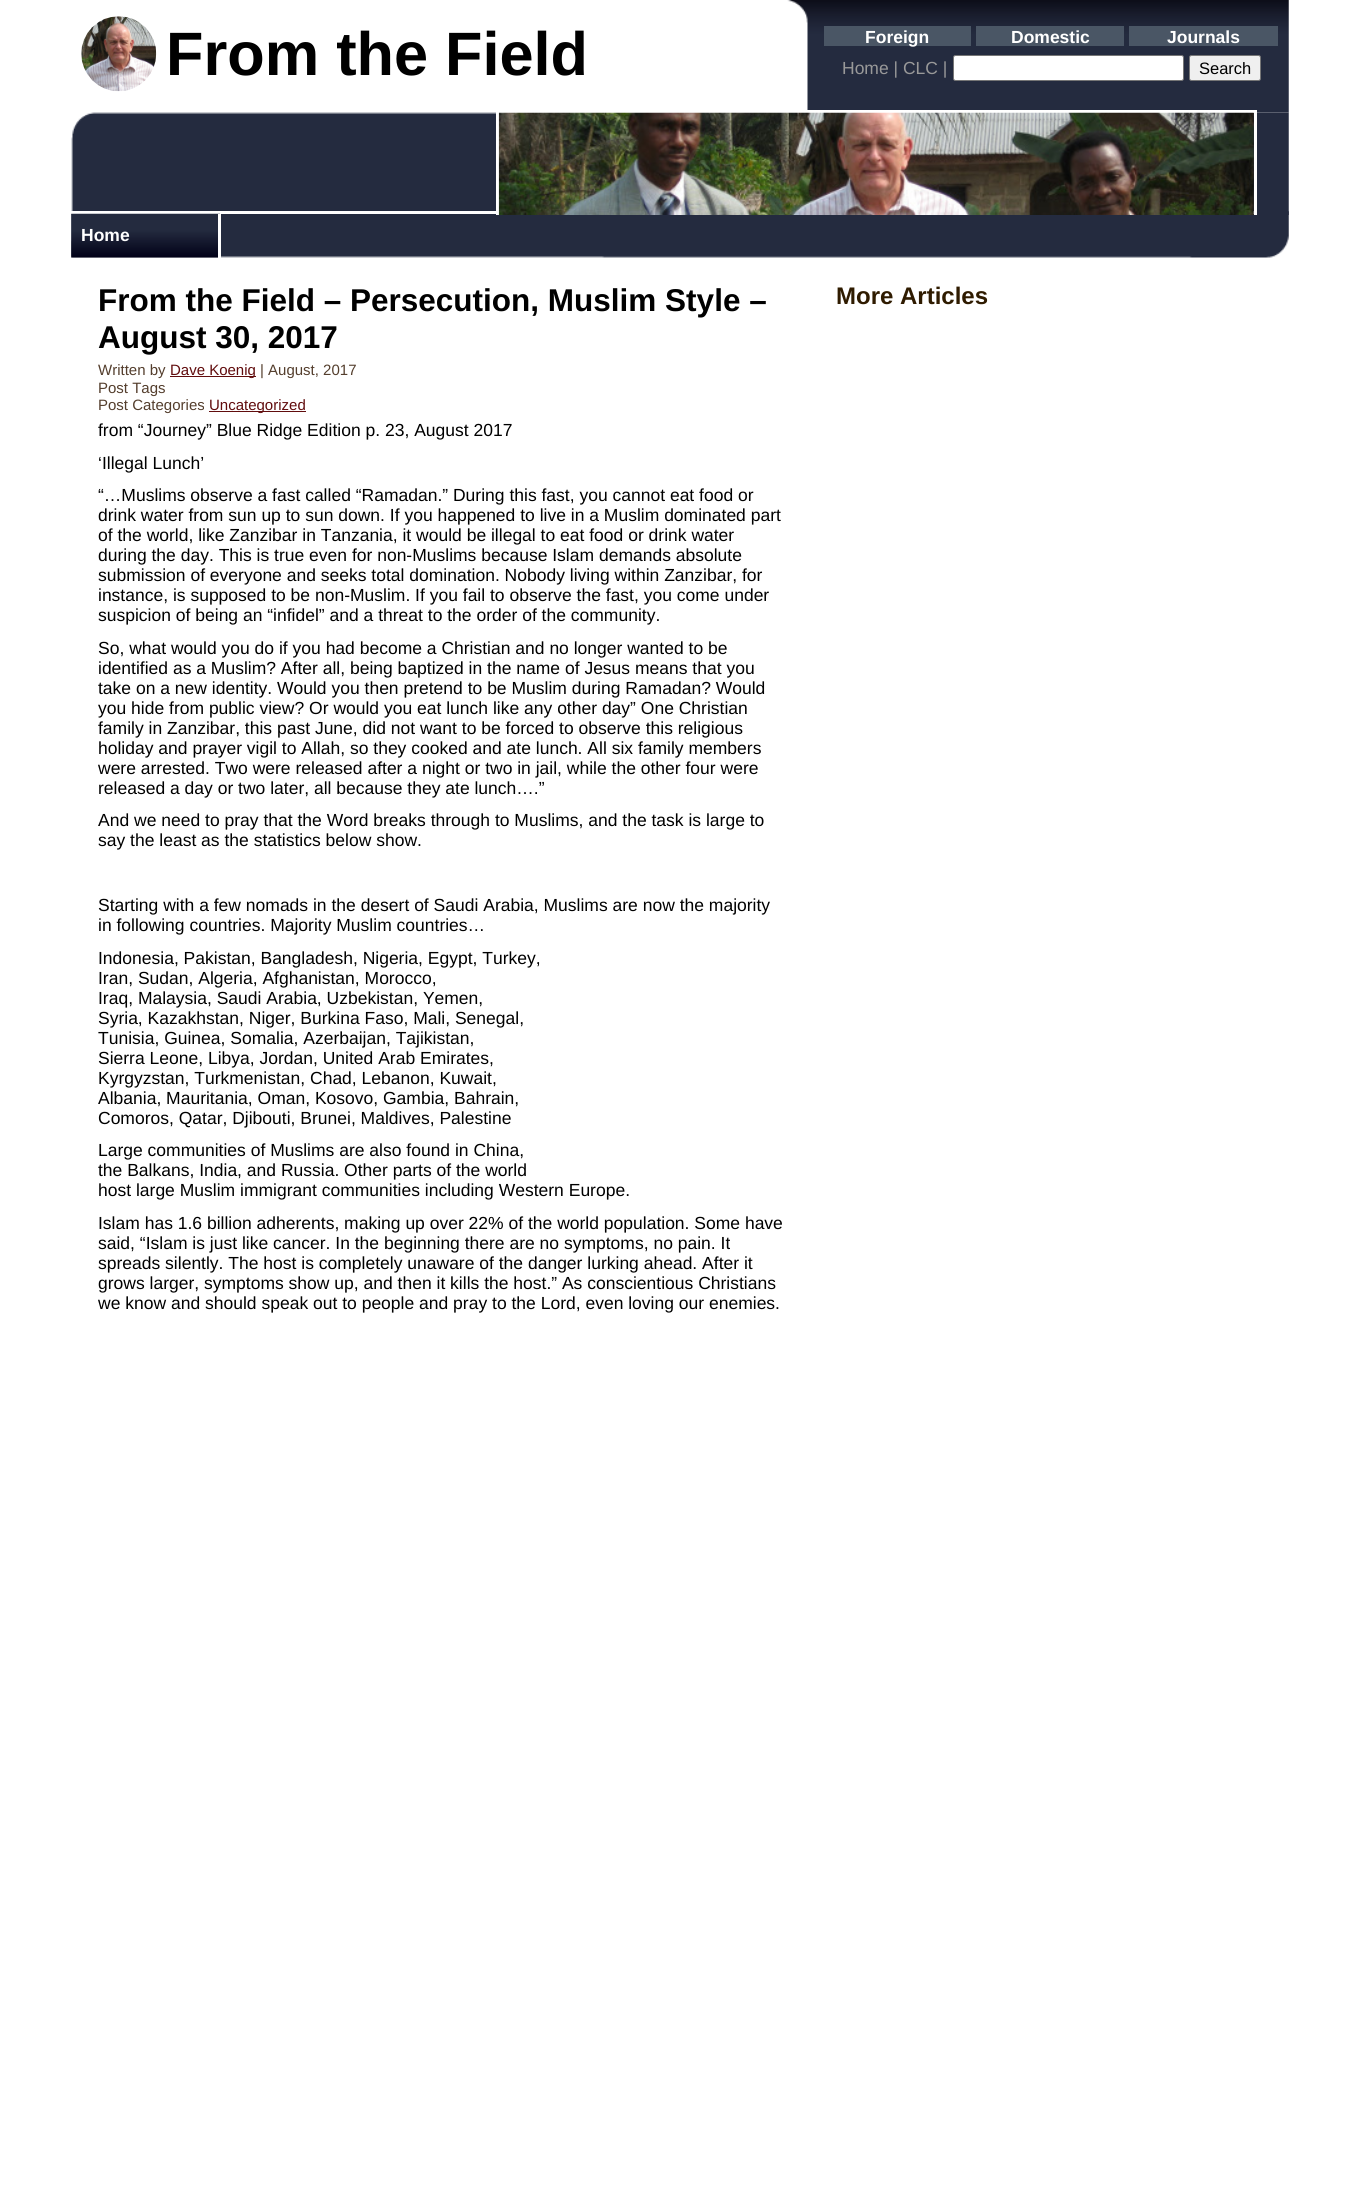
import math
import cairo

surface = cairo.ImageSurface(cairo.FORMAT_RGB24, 1359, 2210)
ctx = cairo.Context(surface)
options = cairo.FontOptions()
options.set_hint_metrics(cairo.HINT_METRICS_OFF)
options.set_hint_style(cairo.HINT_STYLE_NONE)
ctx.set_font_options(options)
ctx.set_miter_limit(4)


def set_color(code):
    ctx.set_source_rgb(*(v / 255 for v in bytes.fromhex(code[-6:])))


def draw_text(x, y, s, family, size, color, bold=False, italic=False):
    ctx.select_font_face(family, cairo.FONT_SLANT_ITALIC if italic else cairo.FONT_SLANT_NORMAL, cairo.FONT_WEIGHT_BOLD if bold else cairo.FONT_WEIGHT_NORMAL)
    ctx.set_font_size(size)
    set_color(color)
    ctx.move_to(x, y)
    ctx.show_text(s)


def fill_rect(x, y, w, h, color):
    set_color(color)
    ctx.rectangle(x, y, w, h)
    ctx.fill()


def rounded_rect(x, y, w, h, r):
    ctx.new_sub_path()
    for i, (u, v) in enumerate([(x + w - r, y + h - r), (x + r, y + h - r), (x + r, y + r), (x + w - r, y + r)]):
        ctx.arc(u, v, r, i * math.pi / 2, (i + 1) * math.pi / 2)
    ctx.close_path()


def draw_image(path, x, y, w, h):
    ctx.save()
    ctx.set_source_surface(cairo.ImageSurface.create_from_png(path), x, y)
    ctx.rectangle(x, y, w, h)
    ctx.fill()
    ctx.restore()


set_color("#ffffff")
ctx.paint()
draw_image("assets/img1.png", 787, 0, 502, 113)
draw_image("assets/img2.png", 81, 16, 76, 76)
draw_text(166, 75, "From the Field", "Liberation Sans", 61.25, "#000000", bold=True)
fill_rect(824, 26, 147, 20, "#4a5665")
draw_text(865, 43, "Foreign", "Liberation Sans", 17.5, "#ffffff", bold=True)
fill_rect(976, 26, 148, 20, "#4a5665")
draw_text(1011, 43, "Domestic", "Liberation Sans", 17.5, "#ffffff", bold=True)
fill_rect(1129, 26, 149, 20, "#4a5665")
draw_text(1167, 43, "Journals", "Liberation Sans", 17.5, "#ffffff", bold=True)
draw_text(842, 74, "Home | CLC |", "Liberation Sans", 17.5, "#999999")
set_color("#ffffff")
rounded_rect(953.5, 55.5, 230, 25, 2)
ctx.fill_preserve()
set_color("#767676")
ctx.set_line_width(1)
ctx.stroke()
set_color("#efefef")
rounded_rect(1189.5, 55.5, 71, 25, 2)
ctx.fill_preserve()
set_color("#767676")
ctx.stroke()
draw_text(1199, 74, "Search", "Liberation Sans", 16.5, "#000000")
draw_image("assets/img3.png", 71, 112, 1218, 103)
fill_rect(496, 110, 760, 3, "#ffffff")
draw_image("assets/img5.png", 71, 211, 1218, 47)
fill_rect(71, 211, 1185, 3, "#ffffff")
fill_rect(1254, 110, 3, 105, "#ffffff")
fill_rect(496, 110, 3, 105, "#ffffff")
draw_image("assets/img4.png", 498, 112, 756, 103)
draw_image("assets/img6.png", 71, 213, 149, 45)
fill_rect(218, 214, 3, 44, "#ffffff")
draw_text(81, 241, "Home", "Liberation Sans", 17.5, "#ffffff", bold=True)
draw_text(98, 311, "From the Field – Persecution, Muslim Style –", "Liberation Sans", 31.5, "#000000", bold=True)
draw_text(98, 348, "August 30, 2017", "Liberation Sans", 31.5, "#000000", bold=True)
draw_text(98, 375, "Written by", "Liberation Sans", 15, "#543e2d")
fill_rect(170, 376, 86, 1, "#610c0d")
draw_text(170, 375, "Dave Koenig", "Liberation Sans", 15, "#610c0d")
draw_text(260, 375, "| August, 2017", "Liberation Sans", 15, "#543e2d")
draw_text(98, 393, "Post Tags", "Liberation Sans", 15, "#543e2d")
draw_text(98, 410, "Post Categories", "Liberation Sans", 15, "#543e2d")
fill_rect(209, 411, 97, 1, "#610c0d")
draw_text(209, 410, "Uncategorized", "Liberation Sans", 15, "#610c0d")
draw_text(98, 436, "from “Journey” Blue Ridge Edition p. 23, August 2017", "Liberation Sans", 17.5, "#000000")
draw_text(98, 469, "‘Illegal Lunch’", "Liberation Sans", 17.5, "#000000")
draw_text(98, 501, "“…Muslims observe a fast called “Ramadan.” During this fast, you cannot eat food or", "Liberation Sans", 17.5, "#000000")
draw_text(98, 521, "drink water from sun up to sun down. If you happened to live in a Muslim dominated part", "Liberation Sans", 17.5, "#000000")
draw_text(98, 541, "of the world, like Zanzibar in Tanzania, it would be illegal to eat food or drink water", "Liberation Sans", 17.5, "#000000")
draw_text(98, 561, "during the day. This is true even for non-Muslims because Islam demands absolute", "Liberation Sans", 17.5, "#000000")
draw_text(98, 581, "submission of everyone and seeks total domination. Nobody living within Zanzibar, for", "Liberation Sans", 17.5, "#000000")
draw_text(98, 601, "instance, is supposed to be non-Muslim. If you fail to observe the fast, you come under", "Liberation Sans", 17.5, "#000000")
draw_text(98, 621, "suspicion of being an “infidel” and a threat to the order of the community.", "Liberation Sans", 17.5, "#000000")
draw_text(98, 654, "So, what would you do if you had become a Christian and no longer wanted to be", "Liberation Sans", 17.5, "#000000")
draw_text(98, 674, "identified as a Muslim? After all, being baptized in the name of Jesus means that you", "Liberation Sans", 17.5, "#000000")
draw_text(98, 694, "take on a new identity. Would you then pretend to be Muslim during Ramadan? Would", "Liberation Sans", 17.5, "#000000")
draw_text(98, 714, "you hide from public view? Or would you eat lunch like any other day” One Christian", "Liberation Sans", 17.5, "#000000")
draw_text(98, 734, "family in Zanzibar, this past June, did not want to be forced to observe this religious", "Liberation Sans", 17.5, "#000000")
draw_text(98, 754, "holiday and prayer vigil to Allah, so they cooked and ate lunch. All six family members", "Liberation Sans", 17.5, "#000000")
draw_text(98, 774, "were arrested. Two were released after a night or two in jail, while the other four were", "Liberation Sans", 17.5, "#000000")
draw_text(98, 794, "released a day or two later, all because they ate lunch….”", "Liberation Sans", 17.5, "#000000")
draw_text(98, 826, "And we need to pray that the Word breaks through to Muslims, and the task is large to", "Liberation Sans", 17.5, "#000000")
draw_text(98, 846, "say the least as the statistics below show.", "Liberation Sans", 17.5, "#000000")
draw_text(98, 911, "Starting with a few nomads in the desert of Saudi Arabia, Muslims are now the majority", "Liberation Sans", 17.5, "#000000")
draw_text(98, 931, "in following countries. Majority Muslim countries…", "Liberation Sans", 17.5, "#000000")
draw_text(98, 964, "Indonesia, Pakistan, Bangladesh, Nigeria, Egypt, Turkey,", "Liberation Sans", 17.5, "#000000")
draw_text(98, 984, "Iran, Sudan, Algeria, Afghanistan, Morocco,", "Liberation Sans", 17.5, "#000000")
draw_text(98, 1004, "Iraq, Malaysia, Saudi Arabia, Uzbekistan, Yemen,", "Liberation Sans", 17.5, "#000000")
draw_text(98, 1024, "Syria, Kazakhstan, Niger, Burkina Faso, Mali, Senegal,", "Liberation Sans", 17.5, "#000000")
draw_text(98, 1044, "Tunisia, Guinea, Somalia, Azerbaijan, Tajikistan,", "Liberation Sans", 17.5, "#000000")
draw_text(98, 1064, "Sierra Leone, Libya, Jordan, United Arab Emirates,", "Liberation Sans", 17.5, "#000000")
draw_text(98, 1084, "Kyrgyzstan, Turkmenistan, Chad, Lebanon, Kuwait,", "Liberation Sans", 17.5, "#000000")
draw_text(98, 1104, "Albania, Mauritania, Oman, Kosovo, Gambia, Bahrain,", "Liberation Sans", 17.5, "#000000")
draw_text(98, 1124, "Comoros, Qatar, Djibouti, Brunei, Maldives, Palestine", "Liberation Sans", 17.5, "#000000")
draw_text(98, 1156, "Large communities of Muslims are also found in China,", "Liberation Sans", 17.5, "#000000")
draw_text(98, 1176, "the Balkans, India, and Russia. Other parts of the world", "Liberation Sans", 17.5, "#000000")
draw_text(98, 1196, "host large Muslim immigrant communities including Western Europe.", "Liberation Sans", 17.5, "#000000")
draw_text(98, 1229, "Islam has 1.6 billion adherents, making up over 22% of the world population. Some have", "Liberation Sans", 17.5, "#000000")
draw_text(98, 1249, "said, “Islam is just like cancer. In the beginning there are no symptoms, no pain. It", "Liberation Sans", 17.5, "#000000")
draw_text(98, 1269, "spreads silently. The host is completely unaware of the danger lurking ahead. After it", "Liberation Sans", 17.5, "#000000")
draw_text(98, 1289, "grows larger, symptoms show up, and then it kills the host.” As conscientious Christians", "Liberation Sans", 17.5, "#000000")
draw_text(98, 1309, "we know and should speak out to people and pray to the Lord, even loving our enemies.", "Liberation Sans", 17.5, "#000000")
draw_text(836, 304, "More Articles", "Liberation Sans", 24, "#2f1b00", bold=True)
surface.write_to_png("output.png")
